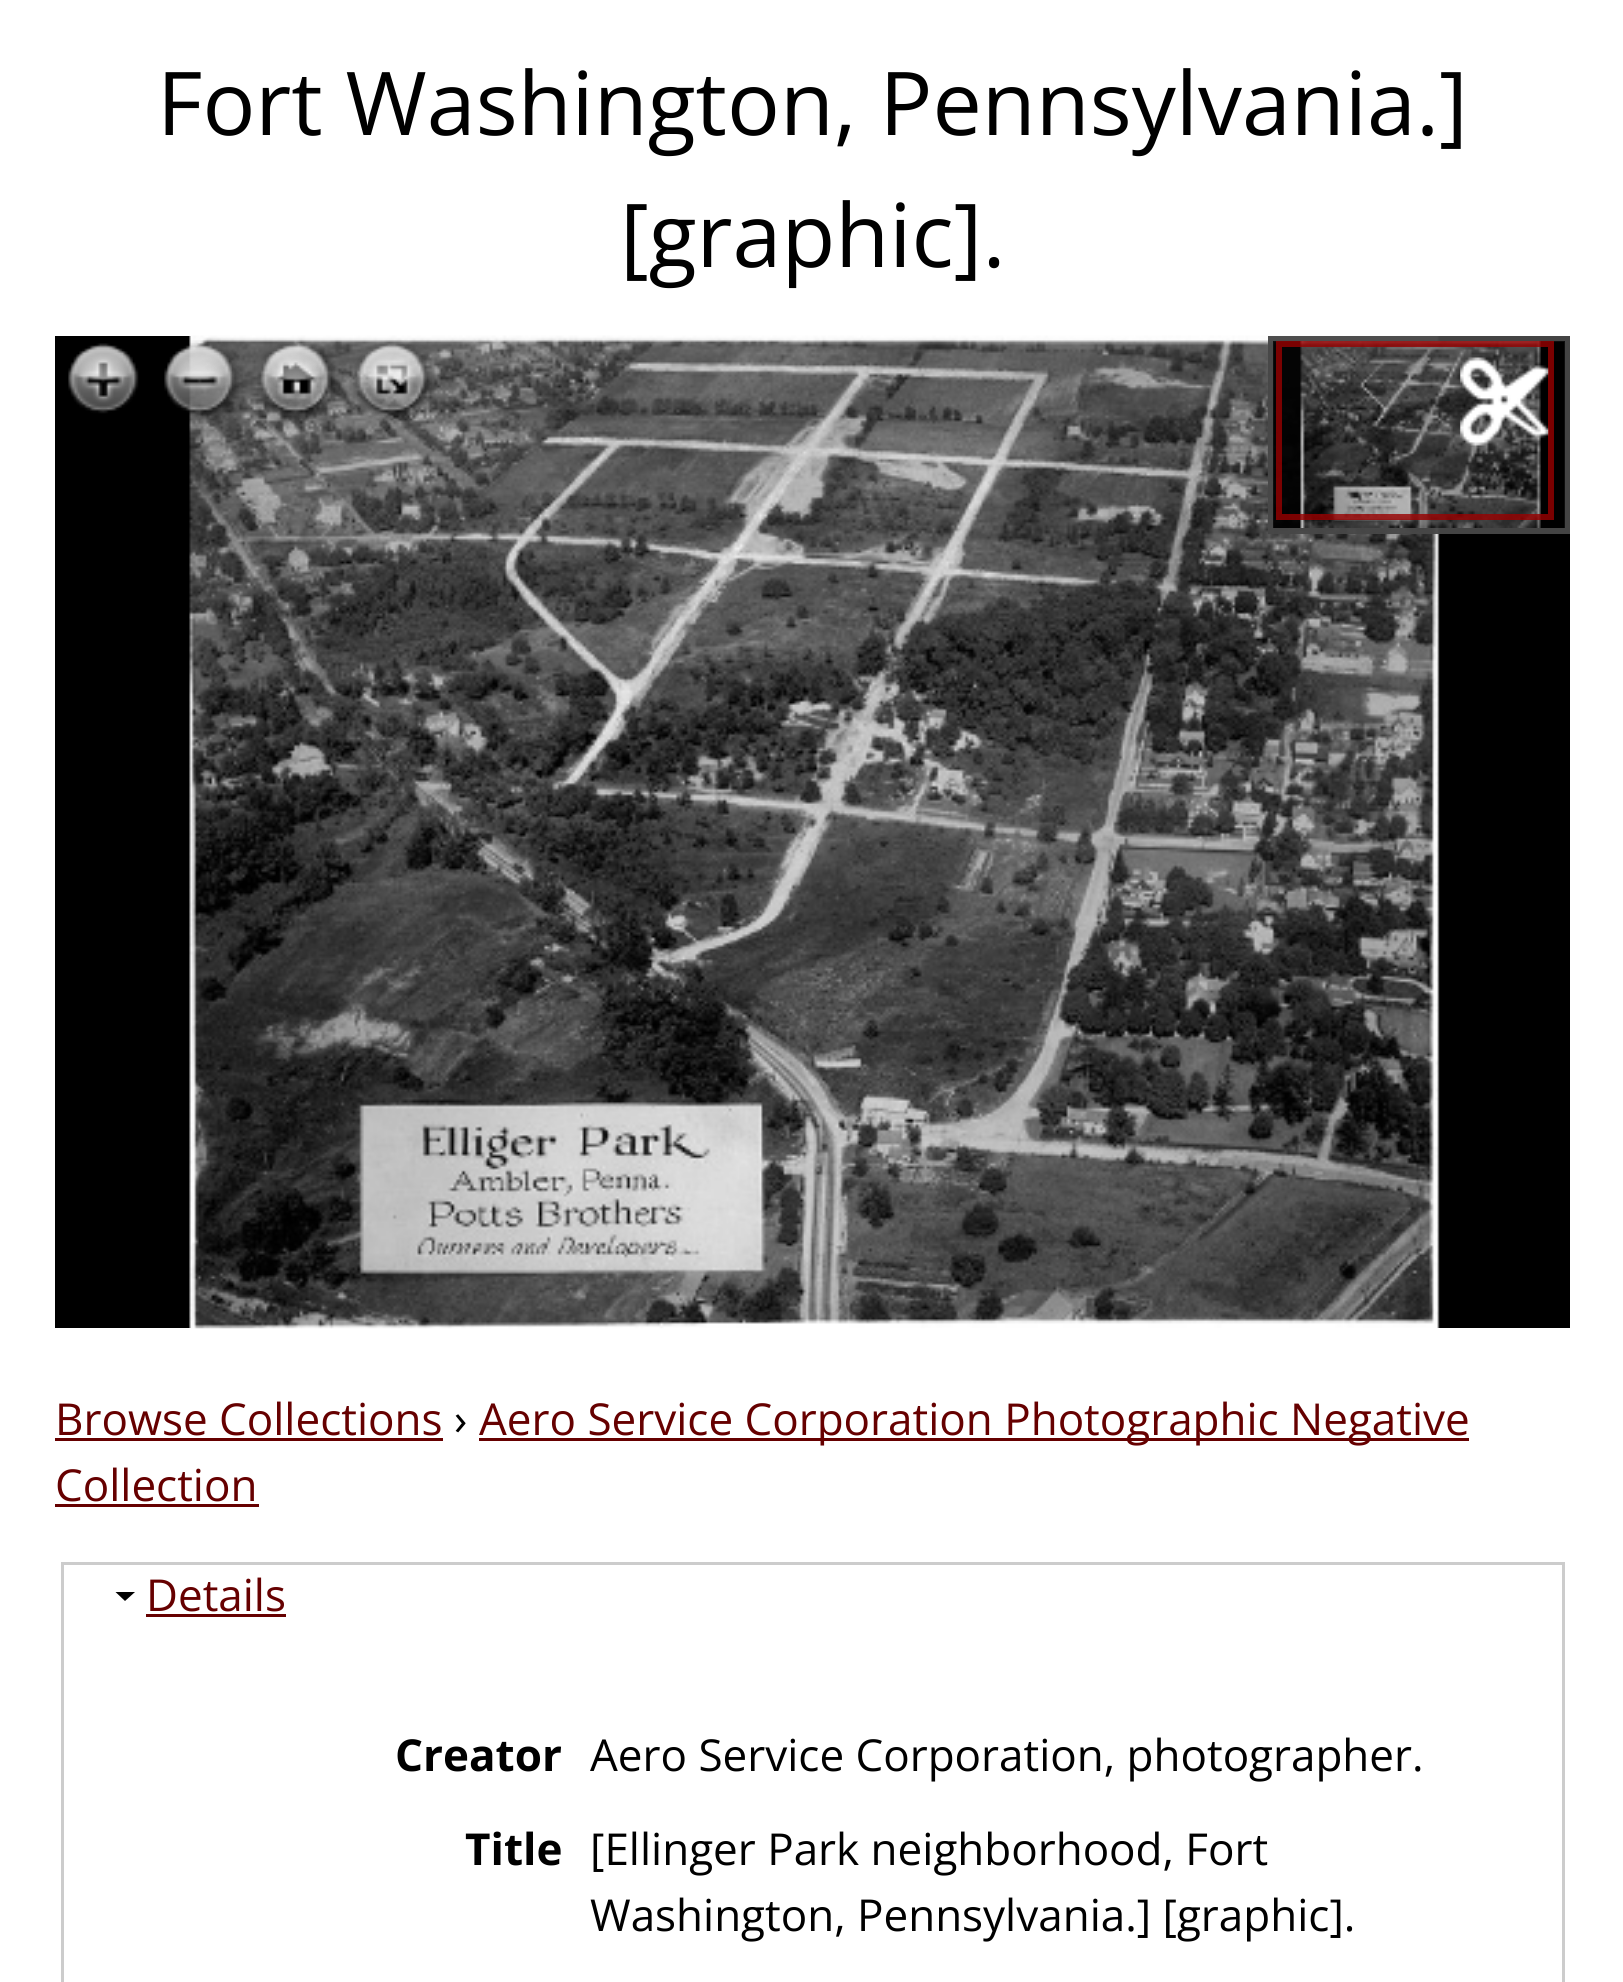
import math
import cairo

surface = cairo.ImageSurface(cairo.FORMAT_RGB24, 1623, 1982)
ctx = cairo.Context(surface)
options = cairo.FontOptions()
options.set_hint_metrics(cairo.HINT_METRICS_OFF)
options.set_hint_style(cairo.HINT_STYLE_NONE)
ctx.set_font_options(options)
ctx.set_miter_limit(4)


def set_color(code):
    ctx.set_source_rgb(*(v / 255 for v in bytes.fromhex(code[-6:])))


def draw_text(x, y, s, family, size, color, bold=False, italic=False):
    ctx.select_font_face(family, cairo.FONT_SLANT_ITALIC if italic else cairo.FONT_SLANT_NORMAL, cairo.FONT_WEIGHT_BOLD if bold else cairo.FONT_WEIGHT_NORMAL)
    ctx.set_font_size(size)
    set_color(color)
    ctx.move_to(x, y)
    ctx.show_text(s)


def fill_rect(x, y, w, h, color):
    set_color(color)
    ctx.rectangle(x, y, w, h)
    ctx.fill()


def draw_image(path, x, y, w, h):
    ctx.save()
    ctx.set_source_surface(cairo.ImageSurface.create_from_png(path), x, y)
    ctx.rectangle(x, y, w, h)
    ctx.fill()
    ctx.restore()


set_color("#ffffff")
ctx.paint()
draw_text(157, 135, "Fort Washington, Pennsylvania.]", "Open Sans", 88, "#000000")
draw_text(620, 267, "[graphic].", "Open Sans", 88, "#000000")
fill_rect(55, 336, 1515, 992, "#000000")
draw_image("assets/img1.png", 189, 335, 1251, 994)
draw_image("assets/img2.png", 68, 343, 71, 71)
draw_image("assets/img3.png", 68, 343, 70, 70)
draw_image("assets/img4.png", 164, 340, 79, 84)
draw_image("assets/img5.png", 164, 343, 75, 77)
draw_image("assets/img6.png", 257, 340, 83, 84)
draw_image("assets/img7.png", 261, 344, 74, 75)
draw_image("assets/img8.png", 353, 340, 83, 84)
draw_image("assets/img9.png", 357, 344, 75, 76)
ctx.set_source_rgba(0, 0, 0, 0.8)
ctx.rectangle(1268, 336, 172, 198)
ctx.fill()
ctx.rectangle(1271, 339, 296, 192)
ctx.set_source_rgba(0.333, 0.333, 0.333, 0.8)
ctx.set_line_width(6)
ctx.stroke()
ctx.set_source_rgba(0, 0, 0, 0.8)
ctx.rectangle(1273, 341, 292, 187)
ctx.fill()
draw_image("assets/img10.png", 1300, 341, 241, 187)
ctx.rectangle(1279, 344, 272, 173)
ctx.set_source_rgba(0.6, 0, 0, 0.8)
ctx.stroke()
draw_image("assets/img11.png", 1460, 357, 89, 89)
draw_text(55, 1435, "Browse Collections", "Open Sans", 44, "#660000")
fill_rect(55, 1438, 388, 3, "#660000")
draw_text(454, 1435, "›", "Open Sans", 44, "#000000")
fill_rect(479, 1438, 990, 3, "#660000")
draw_text(479, 1435, "Aero Service Corporation Photographic Negative", "Open Sans", 44, "#660000")
draw_text(55, 1501, "Collection", "Open Sans", 44, "#660000")
fill_rect(55, 1504, 204, 3, "#660000")
ctx.rectangle(62.5, 1563.5, 1501, 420)
set_color("#cccccc")
ctx.set_line_width(3)
ctx.stroke()
set_color("#000000")
ctx.new_path()
ctx.move_to(135, 1592)
ctx.line_to(125, 1601)
ctx.line_to(115.5, 1592)
ctx.close_path()
ctx.fill()
draw_text(146, 1611, "Details", "Open Sans", 44, "#660000")
fill_rect(146, 1614, 140, 3, "#660000")
draw_text(395, 1771, "Creator", "Open Sans", 44, "#000000", bold=True)
draw_text(590, 1771, "Aero Service Corporation, photographer.", "Open Sans", 44, "#000000")
draw_text(465, 1865, "Title", "Open Sans", 44, "#000000", bold=True)
draw_text(590, 1865, "[Ellinger Park neighborhood, Fort", "Open Sans", 44, "#000000")
draw_text(590, 1931, "Washington, Pennsylvania.] [graphic].", "Open Sans", 44, "#000000")
surface.write_to_png("output.png")
